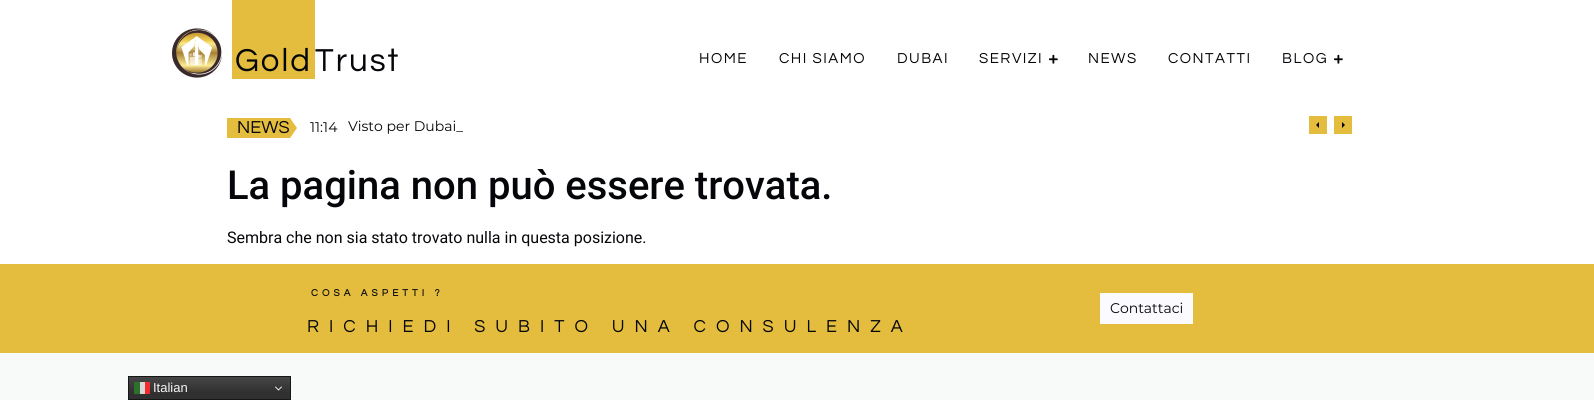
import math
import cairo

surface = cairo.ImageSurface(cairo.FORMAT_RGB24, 1594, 400)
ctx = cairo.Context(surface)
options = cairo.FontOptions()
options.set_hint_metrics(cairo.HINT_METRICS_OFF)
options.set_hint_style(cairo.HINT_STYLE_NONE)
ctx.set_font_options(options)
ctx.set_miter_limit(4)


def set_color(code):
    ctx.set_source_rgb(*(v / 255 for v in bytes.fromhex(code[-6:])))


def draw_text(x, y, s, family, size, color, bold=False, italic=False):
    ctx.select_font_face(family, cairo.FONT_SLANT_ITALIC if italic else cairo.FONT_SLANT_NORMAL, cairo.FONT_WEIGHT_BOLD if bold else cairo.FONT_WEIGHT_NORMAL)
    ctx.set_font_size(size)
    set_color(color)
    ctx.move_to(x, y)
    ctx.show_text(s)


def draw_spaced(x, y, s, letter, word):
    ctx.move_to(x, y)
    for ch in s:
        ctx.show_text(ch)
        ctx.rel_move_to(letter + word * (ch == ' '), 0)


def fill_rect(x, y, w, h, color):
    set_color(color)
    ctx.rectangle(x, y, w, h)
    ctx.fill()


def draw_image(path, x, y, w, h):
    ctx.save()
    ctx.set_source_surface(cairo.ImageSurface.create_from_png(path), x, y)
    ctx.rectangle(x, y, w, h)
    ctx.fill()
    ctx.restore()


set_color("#ffffff")
ctx.paint()
draw_image("assets/img1.png", 172, 28, 50, 50)
fill_rect(232, 0, 83, 79, "#e4bd3f")
ctx.select_font_face("Questrial")
ctx.set_font_size(33)
set_color("#050609")
draw_spaced(235, 71, "Gold", 2, 0)
draw_spaced(315, 71, "Trust", 2, 0)
ctx.set_font_size(15)
draw_spaced(699, 63, "HOME", 1.5, 0)
draw_spaced(779, 63, "CHI SIAMO", 1.5, 0)
draw_spaced(897, 63, "DUBAI", 1.5, 0)
draw_spaced(979, 63, "SERVIZI", 1.5, 0)
draw_image("assets/img2.png", 1049, 54, 9, 10)
draw_spaced(1088, 63, "NEWS", 1.5, 0)
draw_spaced(1168, 63, "CONTATTI", 1.5, 0)
draw_spaced(1282, 63, "BLOG", 1.5, 0)
draw_image("assets/img2.png", 1334, 54, 9, 10)
fill_rect(227, 118, 63, 20, "#e4bd3f")
draw_text(237, 133, "NEWS", "Questrial", 18, "#050609")
set_color("#e4bd3f")
ctx.new_path()
ctx.move_to(290, 138)
ctx.line_to(290, 118)
ctx.line_to(297, 128)
ctx.close_path()
ctx.fill()
draw_text(310, 132, "11:14", "Montserrat", 14, "#050609")
draw_text(348, 131, "Visto per Dubai_", "Montserrat", 14, "#050609")
fill_rect(1309, 116, 18, 18, "#e4bd3f")
set_color("#050609")
ctx.new_path()
ctx.move_to(1319, 122)
ctx.line_to(1319, 128)
ctx.line_to(1316, 125)
ctx.close_path()
ctx.fill()
fill_rect(1334, 116, 18, 18, "#e4bd3f")
set_color("#050609")
ctx.new_path()
ctx.move_to(1342, 128)
ctx.line_to(1342, 122)
ctx.line_to(1345, 125)
ctx.close_path()
ctx.fill()
draw_text(227, 199, "La pagina non può essere trovata.", "Roboto Medium", 40, "#050609")
draw_text(227, 243, "Sembra che non sia stato trovato nulla in questa posizione.", "Roboto", 16, "#050609")
fill_rect(0, 264, 1594, 89, "#e4bd3f")
ctx.select_font_face("Questrial", cairo.FONT_SLANT_NORMAL, cairo.FONT_WEIGHT_BOLD)
ctx.set_font_size(10)
set_color("#111111")
draw_spaced(311, 296, "COSA ASPETTI ?", 4.1, 0)
ctx.select_font_face("Questrial")
ctx.set_font_size(18)
set_color("#050609")
draw_spaced(307, 332, "RICHIEDI SUBITO UNA CONSULENZA", 10, 0)
fill_rect(1100, 293, 93, 31, "#fafaff")
draw_text(1110, 313, "Contattaci", "Montserrat", 14, "#050609")
fill_rect(0, 353, 1594, 47, "#f8f9f9")
gradient = cairo.LinearGradient(210, 376, 210, 400)
gradient.add_color_stop_rgba(0, 0.278, 0.278, 0.278, 1)
gradient.add_color_stop_rgba(0.7, 0.188, 0.188, 0.188, 1)
ctx.set_source(gradient)
ctx.rectangle(129, 377, 161, 22)
ctx.fill()
gradient = cairo.LinearGradient(210, 376, 210, 400)
gradient.add_color_stop_rgba(0, 0.855, 0.855, 0.855, 1)
gradient.add_color_stop_rgba(0.7, 0.839, 0.839, 0.839, 1)
ctx.set_source(gradient)
ctx.rectangle(140, 382, 5, 12)
ctx.fill()
gradient = cairo.LinearGradient(210, 376, 210, 400)
gradient.add_color_stop_rgba(0, 0.961, 0.173, 0.173, 1)
gradient.add_color_stop_rgba(0.7, 0.957, 0.169, 0.169, 1)
ctx.set_source(gradient)
ctx.rectangle(145, 382, 5, 12)
ctx.fill()
gradient = cairo.LinearGradient(210, 376, 210, 400)
gradient.add_color_stop_rgba(0, 0.173, 0.443, 0.173, 1)
gradient.add_color_stop_rgba(0.7, 0.169, 0.439, 0.169, 1)
ctx.set_source(gradient)
ctx.rectangle(134, 382, 6, 12)
ctx.fill()
ctx.rectangle(128.5, 376.5, 162, 23)
set_color("#161616")
ctx.set_line_width(1)
ctx.stroke()
draw_text(153, 392, "Italian", "Liberation Sans", 13, "#f7f7f7")
draw_image("assets/img3.png", 275, 386, 7, 5)
surface.write_to_png("output.png")
